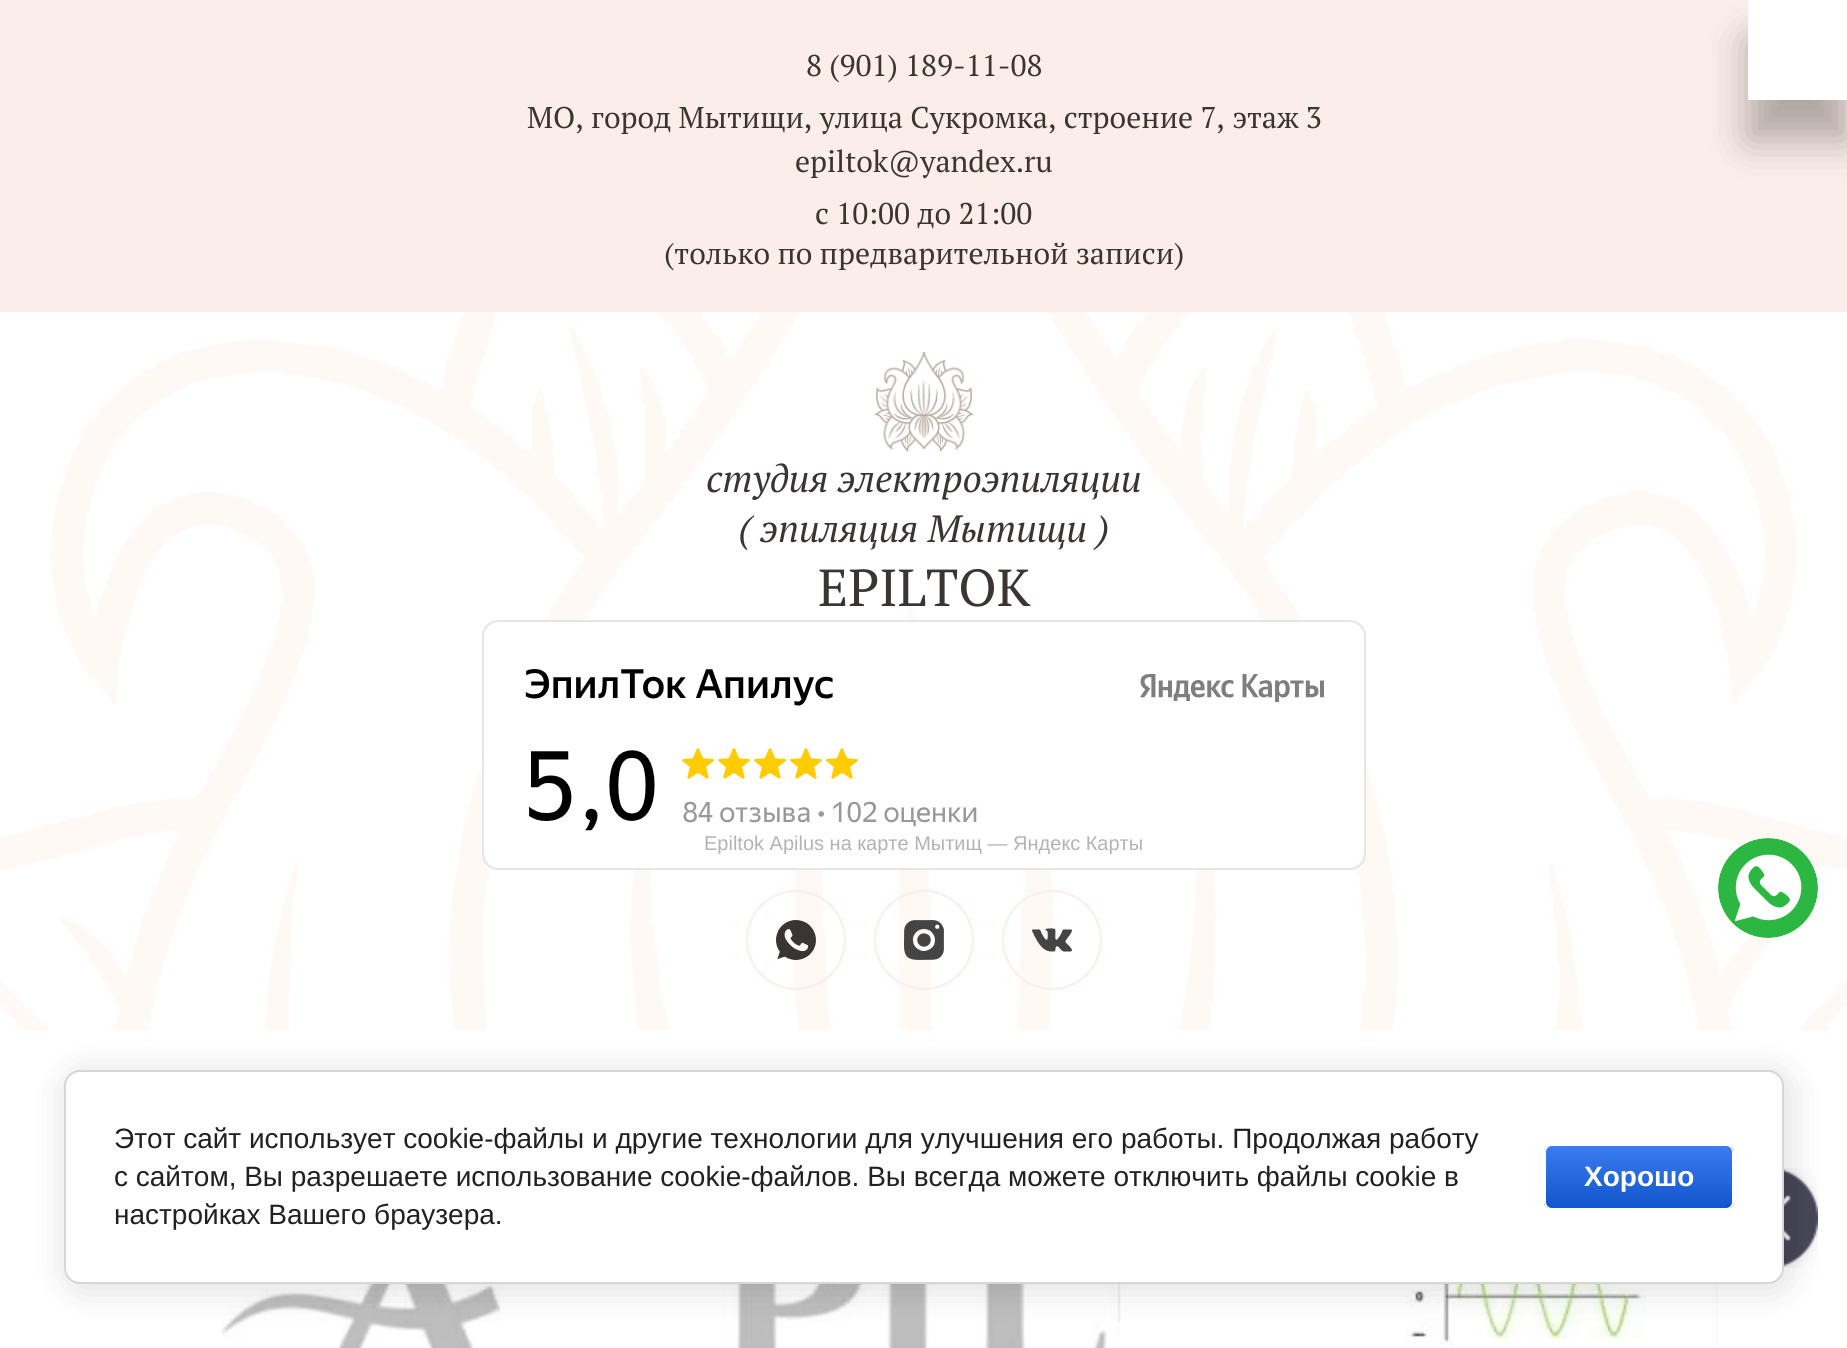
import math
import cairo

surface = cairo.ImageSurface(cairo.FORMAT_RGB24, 1847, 1348)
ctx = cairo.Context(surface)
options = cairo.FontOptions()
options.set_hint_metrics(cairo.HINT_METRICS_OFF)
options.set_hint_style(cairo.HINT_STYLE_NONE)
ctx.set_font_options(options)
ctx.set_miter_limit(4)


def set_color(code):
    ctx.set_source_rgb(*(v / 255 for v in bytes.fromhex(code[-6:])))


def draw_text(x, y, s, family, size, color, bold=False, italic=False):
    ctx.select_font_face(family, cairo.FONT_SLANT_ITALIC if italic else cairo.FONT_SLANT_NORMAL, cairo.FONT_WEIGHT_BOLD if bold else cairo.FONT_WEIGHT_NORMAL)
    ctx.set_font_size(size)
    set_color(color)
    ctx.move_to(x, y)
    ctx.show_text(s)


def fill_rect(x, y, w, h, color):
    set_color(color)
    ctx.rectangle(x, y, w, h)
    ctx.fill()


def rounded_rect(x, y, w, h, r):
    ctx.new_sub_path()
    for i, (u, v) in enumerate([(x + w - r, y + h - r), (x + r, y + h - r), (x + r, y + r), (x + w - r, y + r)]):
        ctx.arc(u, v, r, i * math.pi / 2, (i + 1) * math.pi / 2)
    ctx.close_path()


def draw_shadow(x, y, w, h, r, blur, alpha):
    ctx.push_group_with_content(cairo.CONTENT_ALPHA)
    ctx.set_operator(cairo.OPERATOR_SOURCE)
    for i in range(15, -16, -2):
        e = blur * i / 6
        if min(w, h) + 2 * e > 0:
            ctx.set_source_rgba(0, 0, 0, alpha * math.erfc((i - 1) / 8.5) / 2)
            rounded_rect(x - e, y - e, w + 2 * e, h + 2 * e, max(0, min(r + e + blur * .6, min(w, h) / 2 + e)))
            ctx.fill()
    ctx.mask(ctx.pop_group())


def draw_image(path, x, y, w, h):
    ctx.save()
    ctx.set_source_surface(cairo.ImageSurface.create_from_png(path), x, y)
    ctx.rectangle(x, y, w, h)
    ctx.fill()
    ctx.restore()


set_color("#ffffff")
ctx.paint()
draw_image("assets/img1.png", 0, 312, 1847, 718)
fill_rect(0, 0, 1847, 312, "#fbeee8")
draw_text(806, 76, "8 (901) 189-11-08", "PT Serif", 30, "#3a3533")
draw_text(527, 128, "МО, город Мытищи, улица Сукромка, строение 7, этаж 3", "PT Serif", 30, "#3a3533")
draw_text(795, 172, "epiltok@yandex.ru", "PT Serif", 30, "#3a3533")
draw_text(815, 224, "с 10:00 до 21:00", "PT Serif", 30, "#3a3533")
draw_text(664, 264, "(только по предварительной записи)", "PT Serif", 30, "#3a3533")
draw_image("assets/img2.png", 874, 352, 100, 100)
draw_text(706, 492, "студия электроэпиляции", "PT Serif", 38, "#3a3533", italic=True)
draw_text(738, 542, "( эпиляция Мытищи )", "PT Serif", 38, "#3a3533", italic=True)
draw_text(818, 606, "EPILTOK", "PT Serif", 52, "#3a3533")
rounded_rect(483, 621, 882, 248, 15)
set_color("#e6e6e6")
ctx.stroke()
draw_image("assets/img3.png", 484, 622, 880, 246)
ctx.save()
ctx.rectangle(482, 832, 884, 22)
ctx.clip()
draw_text(704, 850, "Epiltok Apilus на карте Мытищ — Яндекс Карты", "Liberation Sans", 20, "#b3b3b3")
ctx.restore()
ctx.new_path()
ctx.arc(796, 940, 49, 0, 2 * math.pi)
set_color("#fbeee8")
ctx.stroke()
draw_image("assets/img4.png", 776, 920, 40, 40)
ctx.arc(924, 940, 49, 0, 2 * math.pi)
ctx.stroke()
draw_image("assets/img5.png", 904, 920, 40, 40)
ctx.arc(1052, 940, 49, 0, 2 * math.pi)
ctx.stroke()
draw_image("assets/img6.png", 1032, 928, 40, 24)
set_color("#000000")
draw_shadow(1748, 40, 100, 100, 0, 20, 0.3)
fill_rect(1748, 0, 99, 100, "#ffffff")
draw_image("assets/img7.png", 1718, 838, 100, 100)
draw_image("assets/img8.png", 1784, 1168, 34, 100)
draw_image("assets/img9.png", 221, 1284, 296, 64)
draw_image("assets/img10.png", 722, 1284, 399, 64)
draw_image("assets/img11.png", 1342, 1284, 376, 62)
set_color("#000000")
draw_shadow(68, 1074, 1720, 214, 16, 18, 0.14)
set_color("#ffffff")
rounded_rect(65, 1071, 1718, 212, 15)
ctx.fill_preserve()
set_color("#d6d6d6")
ctx.stroke()
draw_text(114, 1148, "Этот сайт использует cookie-файлы и другие технологии для улучшения его работы. Продолжая работу", "Liberation Sans", 28, "#212121")
draw_text(114, 1186, "с сайтом, Вы разрешаете использование cookie-файлов. Вы всегда можете отключить файлы cookie в", "Liberation Sans", 28, "#212121")
draw_text(114, 1224, "настройках Вашего браузера.", "Liberation Sans", 28, "#212121")
ctx.save()
rounded_rect(1544, 1144, 190, 66, 8)
ctx.clip()
gradient = cairo.LinearGradient(1639, 1146, 1639, 1208)
gradient.add_color_stop_rgba(0, 0.231, 0.486, 0.937, 1)
gradient.add_color_stop_rgba(1, 0.067, 0.333, 0.8, 1)
ctx.set_source(gradient)
ctx.rectangle(1544, 1146, 190, 62)
ctx.fill()
ctx.restore()
rounded_rect(1545, 1145, 188, 64, 7)
set_color("#ffffff")
ctx.stroke()
draw_text(1584, 1186, "Хорошо", "Liberation Sans", 28, "#ffffff", bold=True)
surface.write_to_png("output.png")
